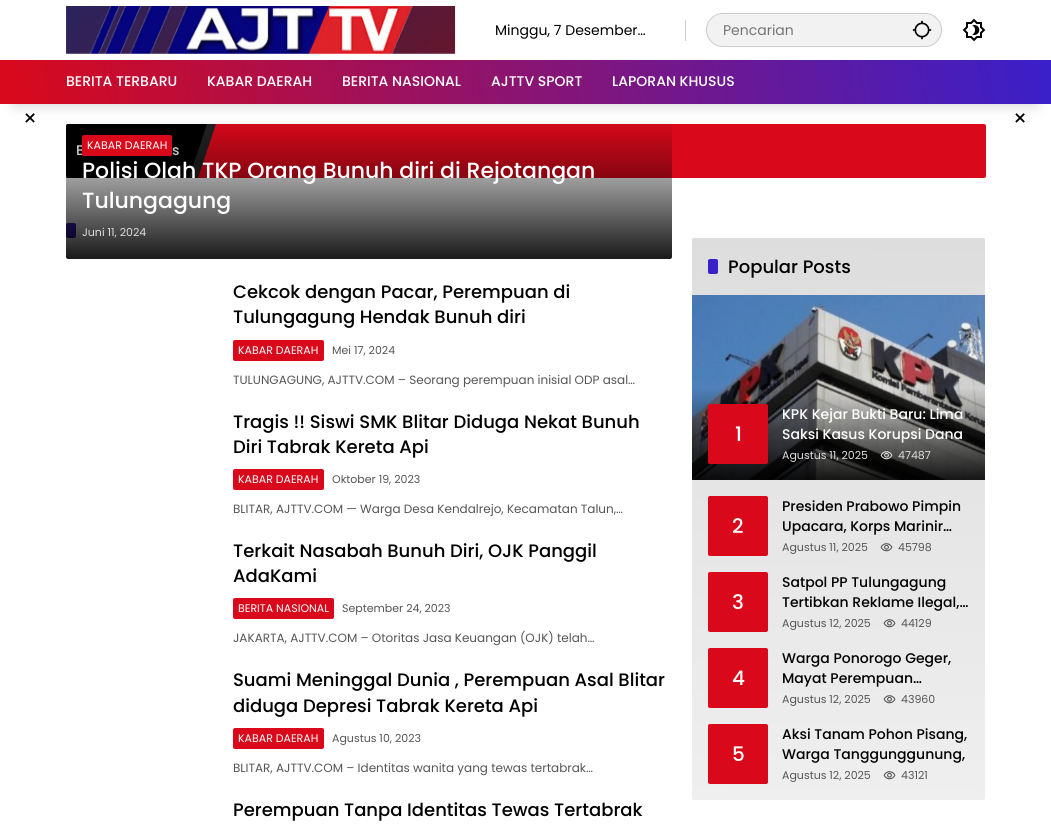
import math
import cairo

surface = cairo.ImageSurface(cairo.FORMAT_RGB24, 1051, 827)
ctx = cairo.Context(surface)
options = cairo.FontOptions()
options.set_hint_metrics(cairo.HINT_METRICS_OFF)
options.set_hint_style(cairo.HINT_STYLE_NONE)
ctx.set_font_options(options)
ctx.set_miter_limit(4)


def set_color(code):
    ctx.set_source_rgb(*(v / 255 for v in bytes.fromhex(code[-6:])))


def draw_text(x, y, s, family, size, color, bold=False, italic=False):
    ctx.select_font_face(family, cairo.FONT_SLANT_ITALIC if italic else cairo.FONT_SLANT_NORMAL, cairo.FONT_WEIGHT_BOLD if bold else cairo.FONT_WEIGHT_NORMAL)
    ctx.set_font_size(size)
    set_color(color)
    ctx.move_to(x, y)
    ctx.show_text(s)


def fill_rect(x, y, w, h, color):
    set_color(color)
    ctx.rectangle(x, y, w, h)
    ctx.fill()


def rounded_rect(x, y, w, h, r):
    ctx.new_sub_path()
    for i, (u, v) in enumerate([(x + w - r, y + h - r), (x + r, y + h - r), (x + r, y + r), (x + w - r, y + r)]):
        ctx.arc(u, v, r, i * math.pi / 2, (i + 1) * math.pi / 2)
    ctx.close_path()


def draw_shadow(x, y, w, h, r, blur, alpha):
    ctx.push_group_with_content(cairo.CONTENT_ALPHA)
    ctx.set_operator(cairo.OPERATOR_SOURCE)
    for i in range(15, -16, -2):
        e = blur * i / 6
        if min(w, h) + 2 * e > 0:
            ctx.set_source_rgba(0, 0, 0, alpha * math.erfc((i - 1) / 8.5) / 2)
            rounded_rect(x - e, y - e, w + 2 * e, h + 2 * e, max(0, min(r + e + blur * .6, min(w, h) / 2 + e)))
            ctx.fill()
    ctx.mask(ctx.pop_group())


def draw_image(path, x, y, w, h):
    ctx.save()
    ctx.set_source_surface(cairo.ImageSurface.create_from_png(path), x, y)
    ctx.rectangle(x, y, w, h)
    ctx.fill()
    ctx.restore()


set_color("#ffffff")
ctx.paint()
draw_image("assets/img1.png", 66, 6, 390, 48)
fill_rect(685, 20, 1, 21, "#cccccc")
draw_text(495, 35, "Minggu, 7 Desember…", "Poppins", 14, "#000000")
set_color("#f2f2f2")
rounded_rect(706.5, 13.5, 235, 33, 16.5)
ctx.fill_preserve()
set_color("#cccccc")
ctx.set_line_width(1)
ctx.stroke()
draw_text(723, 35, "Pencarian", "Poppins", 14, "#757575")
draw_image("assets/img2.png", 912, 20, 20, 20)
draw_image("assets/img3.png", 962, 18, 24, 24)
set_color("#3920c9")
rounded_rect(66, 223, 10, 15, 2)
ctx.fill()
set_color("#d9091b")
rounded_rect(66, 124, 920, 54, 2)
ctx.fill()
set_color("#000000")
ctx.new_path()
ctx.move_to(68, 124)
ctx.line_to(189, 124)
ctx.line_to(189, 178)
ctx.line_to(68, 178)
ctx.curve_to(67, 178, 66, 177, 66, 176)
ctx.line_to(66, 126)
ctx.curve_to(66, 125, 67, 124, 68, 124)
ctx.close_path()
ctx.fill()
set_color("#222222")
ctx.new_path()
ctx.move_to(206, 124)
ctx.line_to(216, 124)
ctx.line_to(198, 178)
ctx.line_to(188, 178)
ctx.close_path()
ctx.fill()
draw_text(76, 155, "B", "Poppins Medium", 14, "#ffffff")
draw_text(172, 155, "s", "Poppins Medium", 14, "#ffffff")
set_color("#000000")
ctx.new_path()
ctx.move_to(189, 124)
ctx.line_to(207, 124)
ctx.line_to(189, 178)
ctx.close_path()
ctx.fill()
gradient = cairo.LinearGradient(369, 259, 369, 119)
gradient.add_color_stop_rgba(0, 0, 0, 0, 0.9)
gradient.add_color_stop_rgba(1, 0, 0, 0, 0)
ctx.set_source(gradient)
ctx.new_path()
ctx.move_to(66, 119)
ctx.line_to(672, 119)
ctx.line_to(672, 257)
ctx.curve_to(672, 258, 671, 259, 670, 259)
ctx.line_to(68, 259)
ctx.curve_to(67, 259, 66, 258, 66, 257)
ctx.close_path()
ctx.fill()
set_color("#000000")
draw_shadow(15, 90, 1021, 14, 0, 7.5, 0.2)
gradient = cairo.LinearGradient(12, 173, 1039, -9)
gradient.add_color_stop_rgba(0, 0.851, 0.035, 0.106, 1)
gradient.add_color_stop_rgba(1, 0.224, 0.125, 0.788, 1)
ctx.set_source(gradient)
ctx.rectangle(0, 60, 1051, 44)
ctx.fill()
draw_text(66, 86, "BERITA TERBARU", "Poppins Medium", 14, "#ffffff")
draw_text(207, 86, "KABAR DAERAH", "Poppins Medium", 14, "#ffffff")
draw_text(342, 86, "BERITA NASIONAL", "Poppins Medium", 14, "#ffffff")
draw_text(491, 86, "AJTTV SPORT", "Poppins Medium", 14, "#ffffff")
draw_text(612, 86, "LAPORAN KHUSUS", "Poppins Medium", 14, "#ffffff")
draw_text(23, 126, "×", "Poppins", 22, "#000000")
draw_text(1013, 126, "×", "Poppins", 22, "#000000")
set_color("#d9091b")
rounded_rect(82, 135, 90, 21, 2)
ctx.fill()
draw_text(87, 149, "KABAR DAERAH", "Poppins", 11, "#ffffff")
draw_text(82, 178, "Polisi Olah TKP Orang Bunuh diri di Rejotangan", "Poppins Medium", 22, "#ffffff")
draw_text(82, 208, "Tulungagung", "Poppins Medium", 22, "#ffffff")
draw_text(82, 236, "Juni 11, 2024", "Poppins", 11, "#dddddd")
draw_text(233, 298, "Cekcok dengan Pacar, Perempuan di", "Poppins Medium", 18, "#000000")
draw_text(233, 323, "Tulungagung Hendak Bunuh diri", "Poppins Medium", 18, "#000000")
set_color("#d9091b")
rounded_rect(233, 340, 91, 21, 2)
ctx.fill()
draw_text(238, 354, "KABAR DAERAH", "Poppins", 11, "#ffffff")
draw_text(332, 354, "Mei 17, 2024", "Poppins", 11, "#555555")
draw_text(233, 384, "TULUNGAGUNG, AJTTV.COM – Seorang perempuan inisial ODP asal…", "Poppins", 12, "#555555")
draw_text(233, 428, "Tragis !! Siswi SMK Blitar Diduga Nekat Bunuh", "Poppins Medium", 18, "#000000")
draw_text(233, 453, "Diri Tabrak Kereta Api", "Poppins Medium", 18, "#000000")
set_color("#d9091b")
rounded_rect(233, 469, 91, 21, 2)
ctx.fill()
draw_text(238, 483, "KABAR DAERAH", "Poppins", 11, "#ffffff")
draw_text(332, 483, "Oktober 19, 2023", "Poppins", 11, "#555555")
draw_text(233, 513, "BLITAR, AJTTV.COM — Warga Desa Kendalrejo, Kecamatan Talun,…", "Poppins", 12, "#555555")
draw_text(233, 557, "Terkait Nasabah Bunuh Diri, OJK Panggil", "Poppins Medium", 18, "#000000")
draw_text(233, 582, "AdaKami", "Poppins Medium", 18, "#000000")
set_color("#d9091b")
rounded_rect(233, 598, 101, 21, 2)
ctx.fill()
draw_text(238, 612, "BERITA NASIONAL", "Poppins", 11, "#ffffff")
draw_text(342, 612, "September 24, 2023", "Poppins", 11, "#555555")
draw_text(233, 642, "JAKARTA, AJTTV.COM – Otoritas Jasa Keuangan (OJK) telah…", "Poppins", 12, "#555555")
draw_text(233, 686, "Suami Meninggal Dunia , Perempuan Asal Blitar", "Poppins Medium", 18, "#000000")
draw_text(233, 712, "diduga Depresi Tabrak Kereta Api", "Poppins Medium", 18, "#000000")
set_color("#d9091b")
rounded_rect(233, 728, 91, 21, 2)
ctx.fill()
draw_text(238, 742, "KABAR DAERAH", "Poppins", 11, "#ffffff")
draw_text(332, 742, "Agustus 10, 2023", "Poppins", 11, "#555555")
draw_text(233, 772, "BLITAR, AJTTV.COM – Identitas wanita yang tewas tertabrak…", "Poppins", 12, "#555555")
draw_text(233, 816, "Perempuan Tanpa Identitas Tewas Tertabrak", "Poppins Medium", 18, "#000000")
gradient = cairo.LinearGradient(834, 802, 843, 236)
gradient.add_color_stop_rgba(0, 0.937, 0.937, 0.937, 1)
gradient.add_color_stop_rgba(1, 0.867, 0.867, 0.867, 1)
ctx.set_source(gradient)
rounded_rect(692, 238, 293, 562, 2)
ctx.fill()
set_color("#3920c9")
rounded_rect(708, 259, 10, 15, 2)
ctx.fill()
draw_text(728, 273, "Popular Posts", "Poppins Medium", 18, "#000000")
draw_image("assets/img4.png", 692, 295, 293, 185)
set_color("#d9091b")
rounded_rect(708, 404, 60, 60, 2)
ctx.fill()
draw_text(735, 441, "1", "Poppins Medium", 20, "#ffffff")
draw_text(782, 419, "KPK Kejar Bukti Baru: Lima", "Poppins Medium", 14, "#ffffff")
draw_text(782, 439, "Saksi Kasus Korupsi Dana", "Poppins Medium", 14, "#ffffff")
draw_text(782, 459, "Agustus 11, 2025", "Poppins", 11, "#dddddd")
draw_image("assets/img5.png", 880, 451, 13, 9)
draw_text(898, 459, "47487", "Poppins", 11, "#dddddd")
set_color("#d9091b")
rounded_rect(708, 496, 60, 60, 2)
ctx.fill()
draw_text(732, 533, "2", "Poppins Medium", 20, "#ffffff")
draw_text(782, 511, "Presiden Prabowo Pimpin", "Poppins Medium", 14, "#000000")
draw_text(782, 531, "Upacara, Korps Marinir…", "Poppins Medium", 14, "#000000")
draw_text(782, 551, "Agustus 11, 2025", "Poppins", 11, "#555555")
draw_image("assets/img6.png", 880, 543, 13, 9)
draw_text(898, 551, "45798", "Poppins", 11, "#555555")
set_color("#d9091b")
rounded_rect(708, 572, 60, 60, 2)
ctx.fill()
draw_text(732, 609, "3", "Poppins Medium", 20, "#ffffff")
draw_text(782, 587, "Satpol PP Tulungagung", "Poppins Medium", 14, "#000000")
draw_text(782, 607, "Tertibkan Reklame Ilegal,…", "Poppins Medium", 14, "#000000")
draw_text(782, 627, "Agustus 12, 2025", "Poppins", 11, "#555555")
draw_image("assets/img7.png", 883, 619, 13, 9)
draw_text(901, 627, "44129", "Poppins", 11, "#555555")
set_color("#d9091b")
rounded_rect(708, 648, 60, 60, 2)
ctx.fill()
draw_text(732, 685, "4", "Poppins Medium", 20, "#ffffff")
draw_text(782, 663, "Warga Ponorogo Geger,", "Poppins Medium", 14, "#000000")
draw_text(782, 683, "Mayat Perempuan…", "Poppins Medium", 14, "#000000")
draw_text(782, 703, "Agustus 12, 2025", "Poppins", 11, "#555555")
draw_image("assets/img8.png", 883, 695, 13, 9)
draw_text(901, 703, "43960", "Poppins", 11, "#555555")
set_color("#d9091b")
rounded_rect(708, 724, 60, 60, 2)
ctx.fill()
draw_text(732, 761, "5", "Poppins Medium", 20, "#ffffff")
draw_text(782, 739, "Aksi Tanam Pohon Pisang,", "Poppins Medium", 14, "#000000")
draw_text(782, 759, "Warga Tanggunggunung,", "Poppins Medium", 14, "#000000")
draw_text(782, 779, "Agustus 12, 2025", "Poppins", 11, "#555555")
draw_image("assets/img9.png", 883, 771, 13, 9)
draw_text(901, 779, "43121", "Poppins", 11, "#555555")
surface.write_to_png("output.png")
